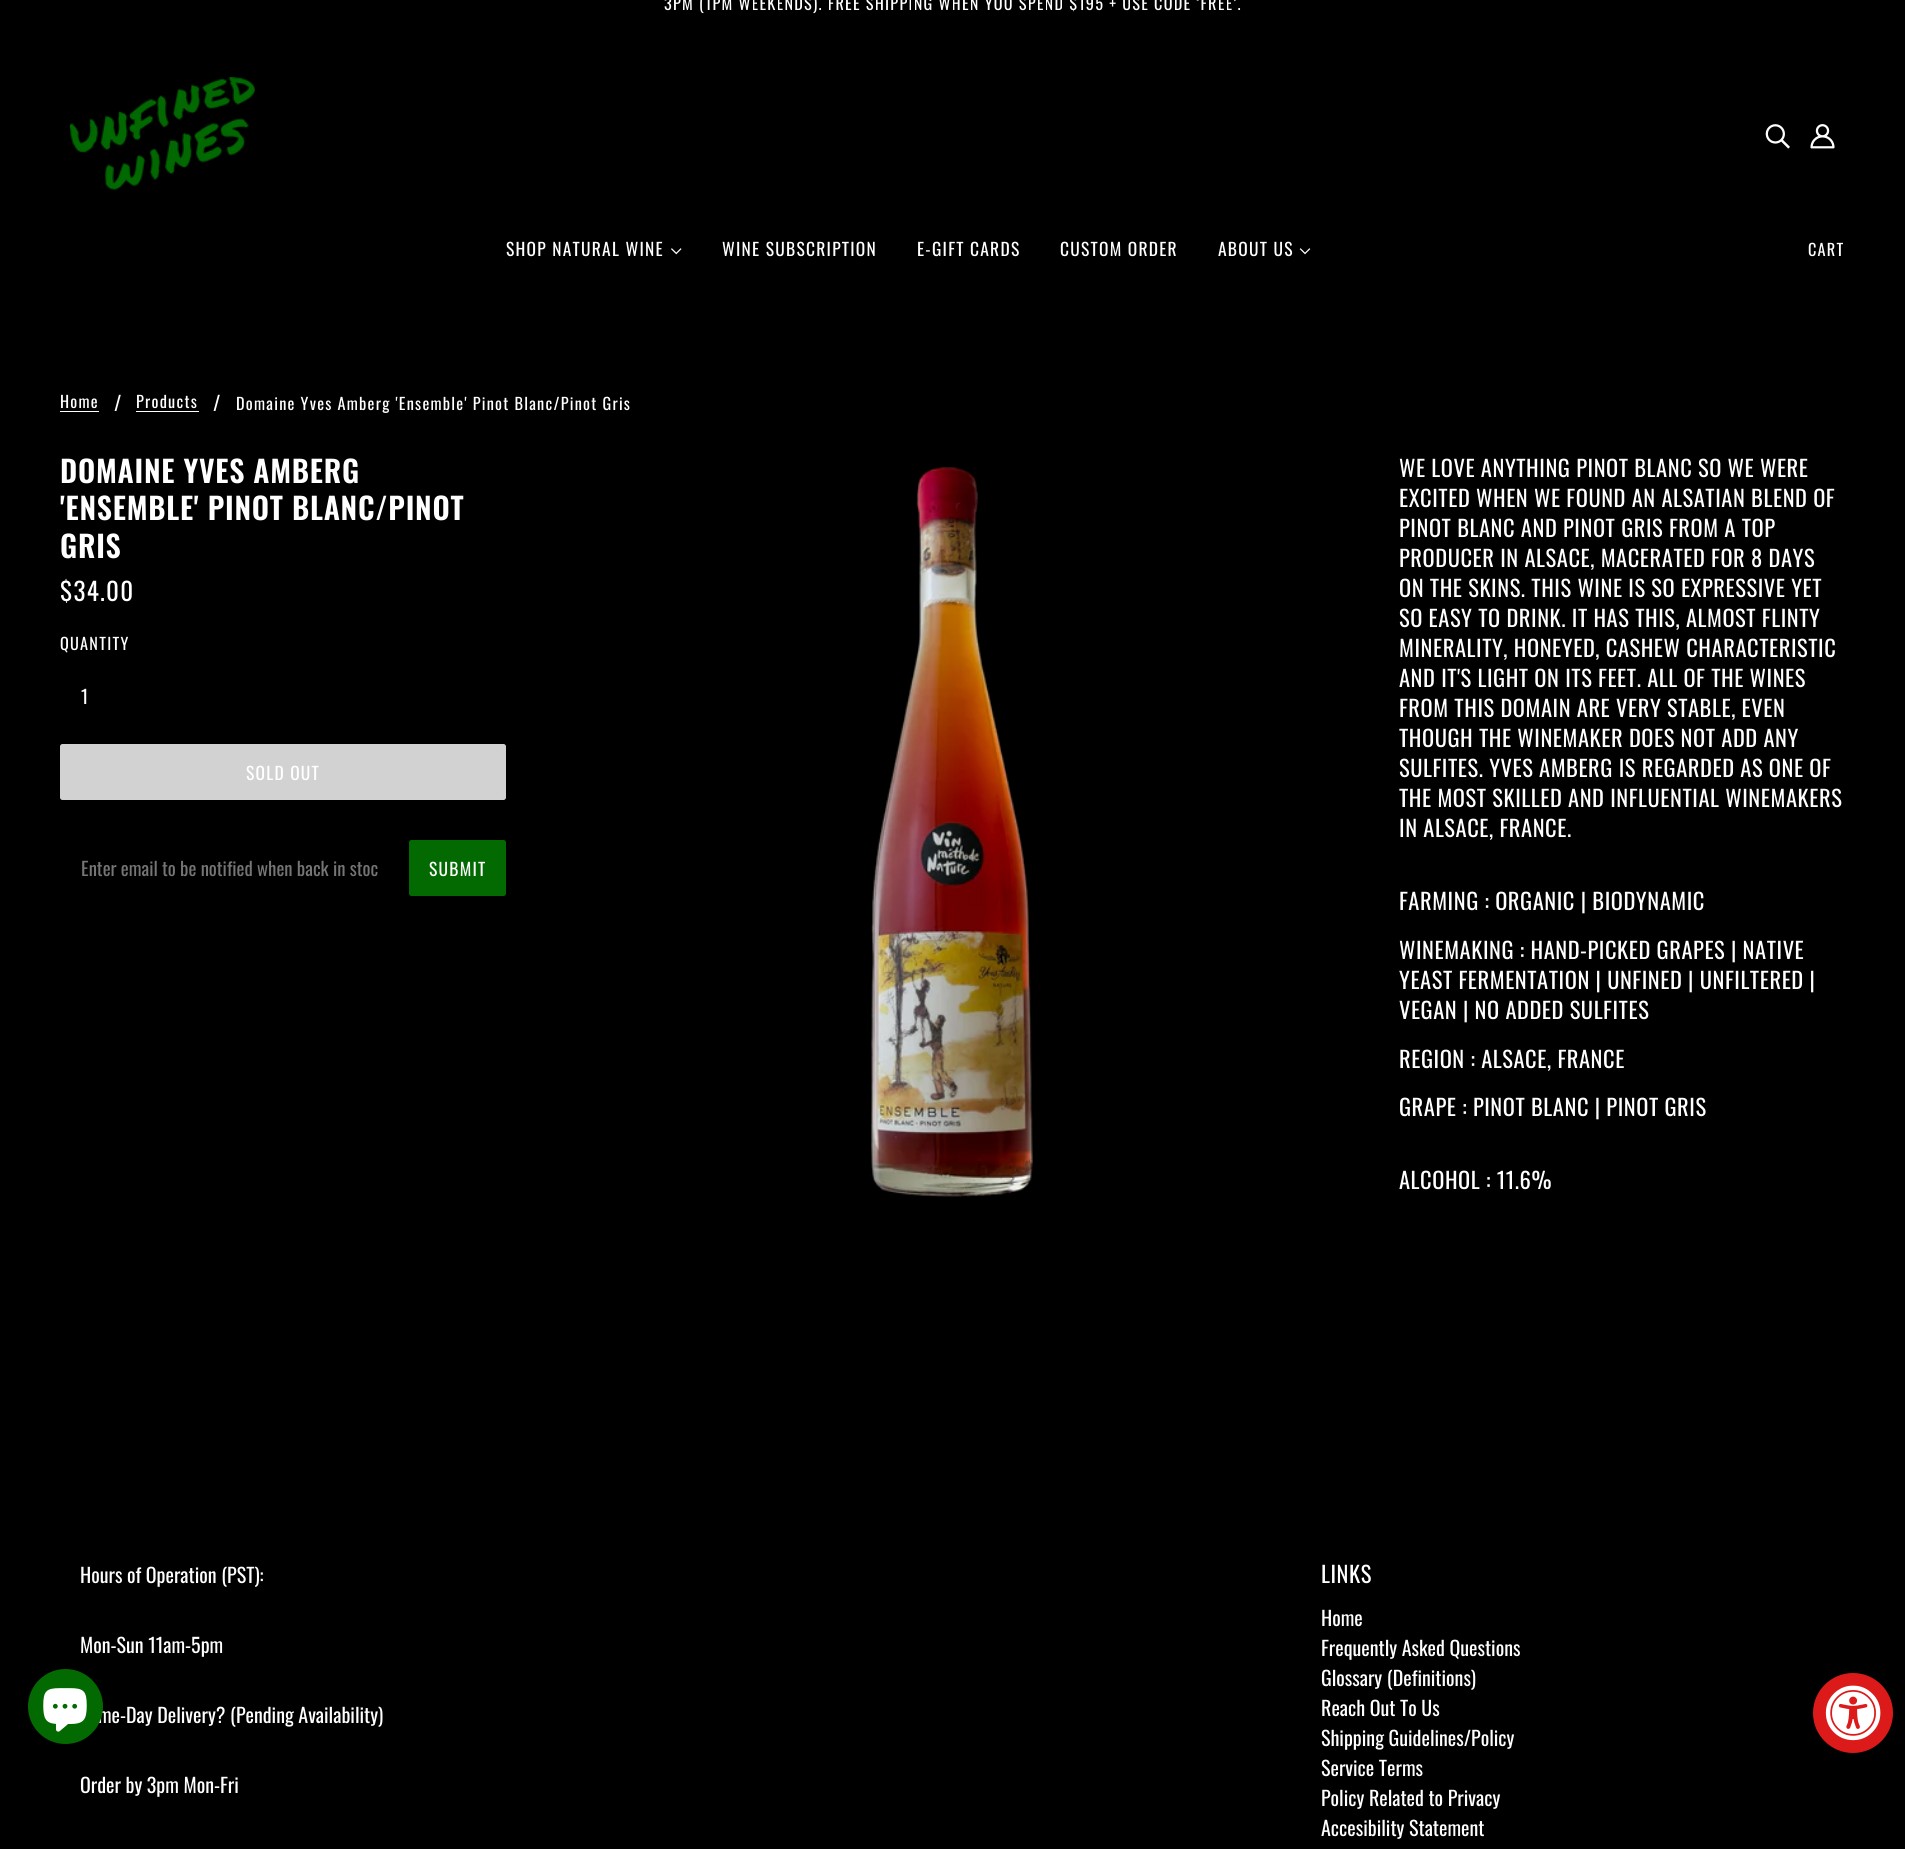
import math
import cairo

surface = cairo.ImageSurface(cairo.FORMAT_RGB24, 1905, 1849)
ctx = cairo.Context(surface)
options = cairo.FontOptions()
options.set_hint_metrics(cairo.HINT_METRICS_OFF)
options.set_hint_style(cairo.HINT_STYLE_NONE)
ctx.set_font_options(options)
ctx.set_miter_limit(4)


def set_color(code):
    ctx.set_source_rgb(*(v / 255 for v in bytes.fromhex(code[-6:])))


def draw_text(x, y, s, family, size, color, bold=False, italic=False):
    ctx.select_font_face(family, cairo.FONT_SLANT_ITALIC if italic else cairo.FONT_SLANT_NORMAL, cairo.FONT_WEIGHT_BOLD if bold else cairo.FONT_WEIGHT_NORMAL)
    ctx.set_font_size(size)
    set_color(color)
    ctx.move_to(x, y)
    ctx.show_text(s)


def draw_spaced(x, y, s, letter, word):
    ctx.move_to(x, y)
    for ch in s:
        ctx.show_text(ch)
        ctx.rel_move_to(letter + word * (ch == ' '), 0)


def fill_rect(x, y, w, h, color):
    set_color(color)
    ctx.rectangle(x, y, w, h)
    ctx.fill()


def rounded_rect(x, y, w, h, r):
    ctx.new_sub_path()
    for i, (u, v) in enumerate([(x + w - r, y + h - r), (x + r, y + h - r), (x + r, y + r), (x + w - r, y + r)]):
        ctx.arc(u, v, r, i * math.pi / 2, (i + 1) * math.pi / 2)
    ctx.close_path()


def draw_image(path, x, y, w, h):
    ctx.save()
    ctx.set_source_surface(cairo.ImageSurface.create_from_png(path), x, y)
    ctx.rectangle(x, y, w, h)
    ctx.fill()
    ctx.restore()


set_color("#000000")
ctx.paint()
ctx.select_font_face("Oswald")
ctx.set_font_size(16.25)
set_color("#ffffff")
draw_spaced(664, 10, "3PM (1PM WEEKENDS). FREE SHIPPING WHEN YOU SPEND $195 + USE CODE ‘FREE’.", 1.25, 0)
draw_image("assets/img1.png", 70, 77, 185, 113)
draw_image("assets/img2.png", 1765, 124, 25, 25)
draw_image("assets/img3.png", 1810, 124, 25, 25)
ctx.set_font_size(17.5)
draw_spaced(506, 256, "SHOP NATURAL WINE", 1.25, 0)
draw_image("assets/img4.png", 671, 248, 11, 7)
draw_spaced(722, 256, "WINE SUBSCRIPTION", 1.25, 0)
draw_spaced(917, 256, "E-GIFT CARDS", 1.25, 0)
draw_spaced(1060, 256, "CUSTOM ORDER", 1.25, 0)
draw_spaced(1218, 256, "ABOUT US", 1.25, 0)
draw_image("assets/img5.png", 1299, 248, 12, 7)
ctx.set_font_size(16.25)
draw_spaced(1808, 256, "CART", 1.25, 0)
draw_spaced(60, 408, "Home", 1.25, 0)
fill_rect(60, 411, 39, 1, "#ffffff")
draw_text(114, 411, "/", "Oswald", 20, "#ffffff")
ctx.set_font_size(16.25)
draw_spaced(136, 408, "Products", 1.25, 0)
fill_rect(136, 411, 63, 1, "#ffffff")
draw_text(213, 411, "/", "Oswald", 20, "#ffffff")
ctx.set_font_size(16.25)
draw_spaced(236, 410, "Domaine Yves Amberg 'Ensemble' Pinot Blanc/Pinot Gris", 1.25, 0)
ctx.select_font_face("Oswald SemiBold")
ctx.set_font_size(30)
draw_spaced(60, 483, "DOMAINE YVES AMBERG", 0.75, 0)
draw_spaced(60, 520, "'ENSEMBLE' PINOT BLANC/PINOT", 0.75, 0)
draw_spaced(60, 558, "GRIS", 0.75, 0)
ctx.select_font_face("Oswald")
ctx.set_font_size(25)
draw_spaced(60, 601, "$34.00", 1.25, 0)
ctx.set_font_size(16.25)
draw_spaced(60, 650, "QUANTITY", 1.25, 0)
draw_text(81, 704, "1", "Oswald", 18.75, "#ffffff")
set_color("#d2d2d2")
rounded_rect(60, 744, 446, 56, 2.5)
ctx.fill()
ctx.set_font_size(17.5)
set_color("#ffffff")
draw_spaced(246, 780, "SOLD OUT", 1.25, 0)
draw_text(81, 876, "Enter email to be notified when back in stoc", "Oswald", 18.75, "#757575")
set_color("#036a02")
rounded_rect(409, 840, 97, 56, 2.5)
ctx.fill()
ctx.set_font_size(17.5)
set_color("#ffffff")
draw_spaced(429, 876, "SUBMIT", 1.25, 0)
draw_image("assets/img6.png", 871, 467, 162, 730)
ctx.set_font_size(22.5)
draw_spaced(1399, 477, "WE LOVE ANYTHING PINOT BLANC SO WE WERE", 0.55, 0)
draw_spaced(1399, 507, "EXCITED WHEN WE FOUND AN ALSATIAN BLEND OF", 0.55, 0)
draw_spaced(1399, 537, "PINOT BLANC AND PINOT GRIS FROM A TOP", 0.55, 0)
draw_spaced(1399, 567, "PRODUCER IN ALSACE, MACERATED FOR 8 DAYS", 0.55, 0)
draw_spaced(1399, 597, "ON THE SKINS. THIS WINE IS SO EXPRESSIVE YET", 0.55, 0)
draw_spaced(1399, 627, "SO EASY TO DRINK. IT HAS THIS, ALMOST FLINTY", 0.55, 0)
draw_spaced(1399, 657, "MINERALITY, HONEYED, CASHEW CHARACTERISTIC", 0.55, 0)
draw_spaced(1399, 687, "AND IT'S LIGHT ON ITS FEET. ALL OF THE WINES", 0.55, 0)
draw_spaced(1399, 717, "FROM THIS DOMAIN ARE VERY STABLE, EVEN", 0.55, 0)
draw_spaced(1399, 747, "THOUGH THE WINEMAKER DOES NOT ADD ANY", 0.55, 0)
draw_spaced(1399, 777, "SULFITES. YVES AMBERG IS REGARDED AS ONE OF", 0.55, 0)
draw_spaced(1399, 807, "THE MOST SKILLED AND INFLUENTIAL WINEMAKERS", 0.55, 0)
draw_spaced(1399, 837, "IN ALSACE, FRANCE.", 0.55, 0)
draw_spaced(1399, 910, "FARMING : ORGANIC | BIODYNAMIC", 0.55, 0)
draw_spaced(1399, 959, "WINEMAKING : HAND-PICKED GRAPES | NATIVE", 0.55, 0)
draw_spaced(1399, 989, "YEAST FERMENTATION | UNFINED | UNFILTERED |", 0.55, 0)
draw_spaced(1399, 1019, "VEGAN | NO ADDED SULFITES", 0.55, 0)
draw_spaced(1399, 1068, "REGION : ALSACE, FRANCE", 0.55, 0)
draw_spaced(1399, 1116, "GRAPE : PINOT BLANC | PINOT GRIS", 0.55, 0)
draw_spaced(1399, 1189, "ALCOHOL : 11.6%", 0.55, 0)
draw_text(80, 1583, "Hours of Operation (PST):", "Oswald", 20, "#ffffff")
draw_text(80, 1653, "Mon-Sun 11am-5pm", "Oswald", 20, "#ffffff")
draw_text(98, 1723, "me-Day Delivery? (Pending Availability)", "Oswald", 20, "#ffffff")
draw_text(80, 1793, "Order by 3pm Mon-Fri", "Oswald", 20, "#ffffff")
ctx.set_font_size(22.5)
draw_spaced(1321, 1583, "LINKS", 0.55, 0)
draw_text(1321, 1626, "Home", "Oswald", 20, "#ffffff")
draw_text(1321, 1656, "Frequently Asked Questions", "Oswald", 20, "#ffffff")
draw_text(1321, 1686, "Glossary (Definitions)", "Oswald", 20, "#ffffff")
draw_text(1321, 1716, "Reach Out To Us", "Oswald", 20, "#ffffff")
draw_text(1321, 1746, "Shipping Guidelines/Policy", "Oswald", 20, "#ffffff")
draw_text(1321, 1776, "Service Terms", "Oswald", 20, "#ffffff")
draw_text(1321, 1806, "Policy Related to Privacy", "Oswald", 20, "#ffffff")
draw_text(1321, 1836, "Accesibility Statement", "Oswald", 20, "#ffffff")
set_color("#036a02")
ctx.new_path()
ctx.arc(65.5, 1706.5, 37.5, 0, 2 * math.pi)
ctx.fill()
draw_image("assets/img7.png", 43, 1688, 44, 44)
set_color("#dc1a1a")
ctx.arc(1853, 1713, 40, 0, 2 * math.pi)
ctx.fill()
draw_image("assets/img8.png", 1825, 1685, 56, 56)
surface.write_to_png("output.png")
